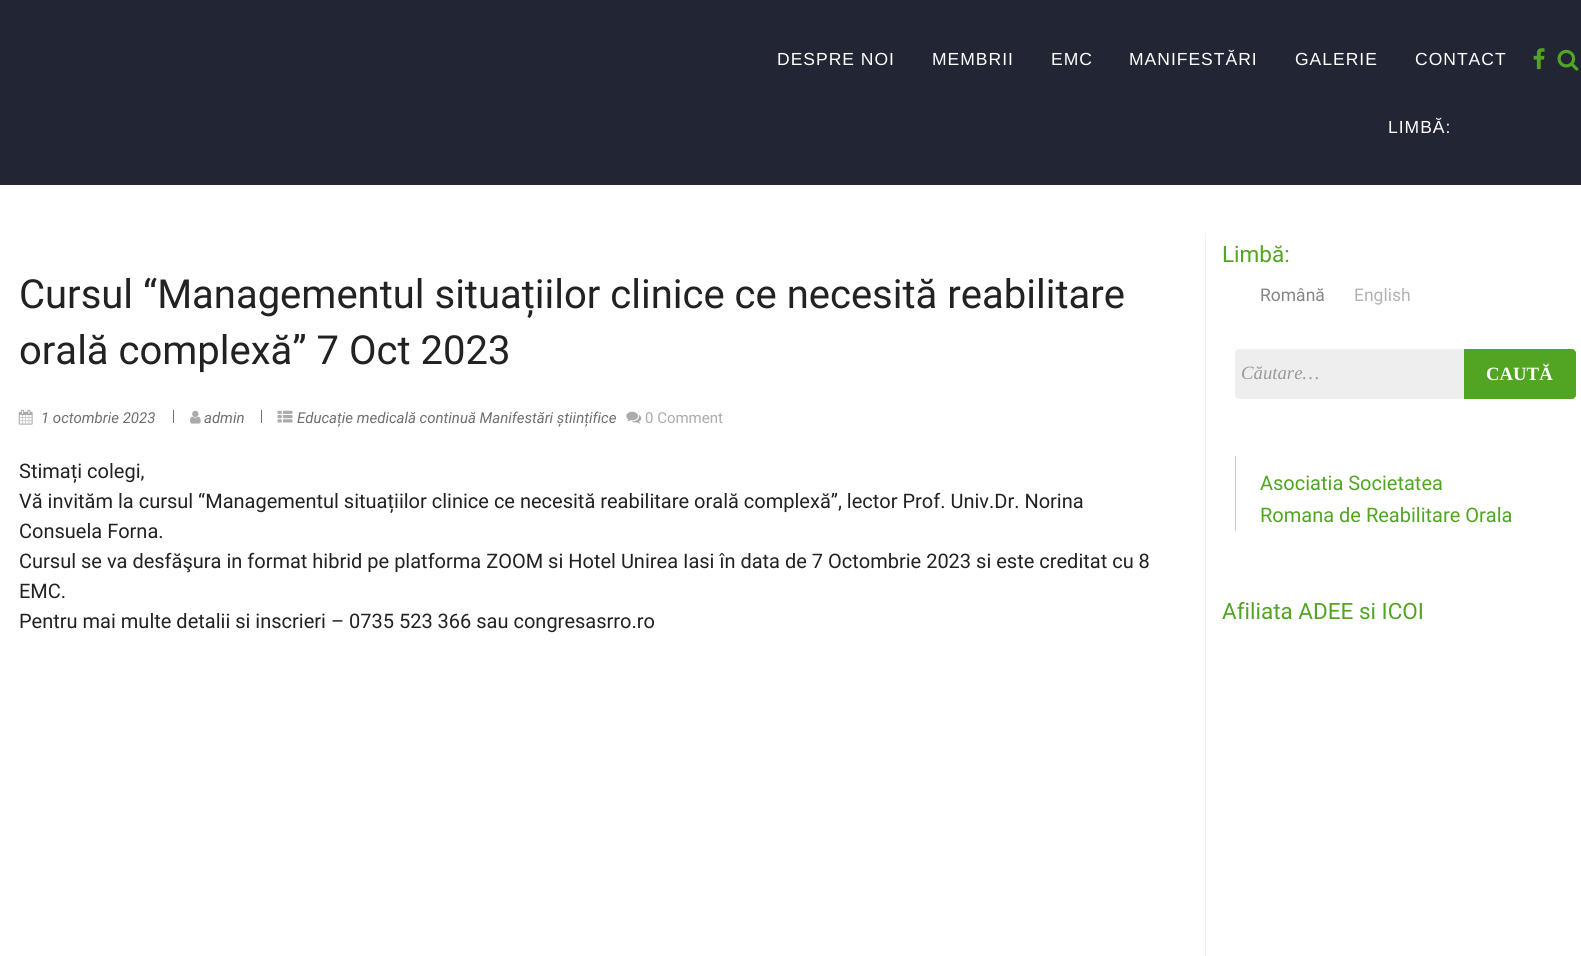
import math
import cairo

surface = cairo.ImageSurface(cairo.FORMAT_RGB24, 1581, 956)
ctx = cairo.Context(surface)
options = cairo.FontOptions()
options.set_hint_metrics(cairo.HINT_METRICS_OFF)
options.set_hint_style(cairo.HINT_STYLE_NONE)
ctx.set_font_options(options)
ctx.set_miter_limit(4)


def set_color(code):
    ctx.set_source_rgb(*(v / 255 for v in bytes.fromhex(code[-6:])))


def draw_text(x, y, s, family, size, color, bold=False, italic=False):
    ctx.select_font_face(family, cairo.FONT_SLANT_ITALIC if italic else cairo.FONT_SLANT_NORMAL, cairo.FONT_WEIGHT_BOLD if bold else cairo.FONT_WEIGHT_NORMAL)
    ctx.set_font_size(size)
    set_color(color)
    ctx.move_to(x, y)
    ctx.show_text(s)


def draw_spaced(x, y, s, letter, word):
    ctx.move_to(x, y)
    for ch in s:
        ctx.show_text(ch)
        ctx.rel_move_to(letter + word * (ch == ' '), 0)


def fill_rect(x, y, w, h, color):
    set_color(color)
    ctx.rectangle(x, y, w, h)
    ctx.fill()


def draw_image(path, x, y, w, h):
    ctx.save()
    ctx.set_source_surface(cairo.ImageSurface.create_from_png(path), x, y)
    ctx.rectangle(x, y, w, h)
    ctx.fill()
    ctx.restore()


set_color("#ffffff")
ctx.paint()
fill_rect(0, 0, 1581, 185, "#222533")
ctx.select_font_face("Liberation Sans")
ctx.set_font_size(17.5)
set_color("#ffffff")
draw_spaced(777, 65, "DESPRE NOI", 1, 0)
draw_spaced(932, 65, "MEMBRII", 1, 0)
draw_spaced(1051, 65, "EMC", 1, 0)
draw_spaced(1129, 65, "MANIFESTĂRI", 1, 0)
draw_spaced(1295, 65, "GALERIE", 1, 0)
draw_spaced(1415, 65, "CONTACT", 1, 0)
draw_spaced(1388, 133, "LIMBĂ:", 1, 0)
draw_image("assets/img1.png", 1533, 48, 12, 22)
draw_image("assets/img2.png", 1557, 49, 22, 22)
draw_text(19, 308, "Cursul “Managementul situațiilor clinice ce necesită reabilitare", "Roboto", 40, "#222222")
draw_text(19, 364, "orală complexă” 7 Oct 2023", "Roboto", 40, "#222222")
draw_image("assets/img3.png", 18, 409, 15, 16)
draw_text(41, 423, "1 octombrie 2023", "Roboto", 15, "#6f6f6f", italic=True)
fill_rect(173, 410, 1, 13, "#6f6f6f")
draw_image("assets/img4.png", 190, 410, 11, 14)
draw_text(204, 423, "admin", "Roboto", 15, "#6f6f6f", italic=True)
fill_rect(261, 410, 1, 13, "#6f6f6f")
draw_image("assets/img5.png", 277, 410, 16, 13)
draw_text(297, 423, "Educație medicală continuă Manifestări științifice", "Roboto", 15, "#6f6f6f", italic=True)
draw_image("assets/img6.png", 626, 411, 16, 13)
draw_text(645, 423, "0 Comment", "Roboto", 15, "#ababab")
draw_text(19, 478, "Stimați colegi,", "Roboto", 20, "#222222")
draw_text(19, 508, "Vă invităm la cursul “Managementul situațiilor clinice ce necesită reabilitare orală complexă”, lector Prof. Univ.Dr. Norina", "Roboto", 20, "#222222")
draw_text(19, 538, "Consuela Forna.", "Roboto", 20, "#222222")
draw_text(19, 568, "Cursul se va desfăşura in format hibrid pe platforma ZOOM si Hotel Unirea Iasi în data de 7 Octombrie 2023 si este creditat cu 8", "Roboto", 20, "#222222")
draw_text(19, 598, "EMC.", "Roboto", 20, "#222222")
draw_text(19, 628, "Pentru mai multe detalii si inscrieri – 0735 523 366 sau congresasrro.ro", "Roboto", 20, "#222222")
fill_rect(1205, 233, 1, 723, "#f2f2f2")
draw_text(1222, 262, "Limbă:", "Roboto", 22.5, "#52a522")
draw_text(1260, 301, "Română", "Roboto", 17.5, "#858585")
draw_text(1354, 301, "English", "Roboto", 17.5, "#b3b3b3")
set_color("#eeeeee")
ctx.new_path()
ctx.move_to(1239, 349)
ctx.line_to(1464, 349)
ctx.line_to(1464, 399)
ctx.line_to(1239, 399)
ctx.curve_to(1237, 399, 1235, 397, 1235, 395)
ctx.line_to(1235, 353)
ctx.curve_to(1235, 351, 1237, 349, 1239, 349)
ctx.close_path()
ctx.fill()
draw_text(1241, 379, "Căutare…", "Liberation Serif", 18.75, "#999999", italic=True)
set_color("#52a522")
ctx.new_path()
ctx.move_to(1464, 349)
ctx.line_to(1572, 349)
ctx.curve_to(1574, 349, 1576, 351, 1576, 353)
ctx.line_to(1576, 395)
ctx.curve_to(1576, 397, 1574, 399, 1572, 399)
ctx.line_to(1464, 399)
ctx.close_path()
ctx.fill()
draw_text(1486, 380, "CAUTĂ", "Liberation Serif", 18.75, "#ffffff", bold=True)
fill_rect(1235, 456, 1, 75, "#cacaca")
draw_text(1260, 490, "Asociatia Societatea", "Roboto", 20, "#52a522")
draw_text(1260, 522, "Romana de Reabilitare Orala", "Roboto", 20, "#52a522")
draw_text(1222, 619, "Afiliata ADEE si ICOI", "Roboto", 22.5, "#52a522")
surface.write_to_png("output.png")
